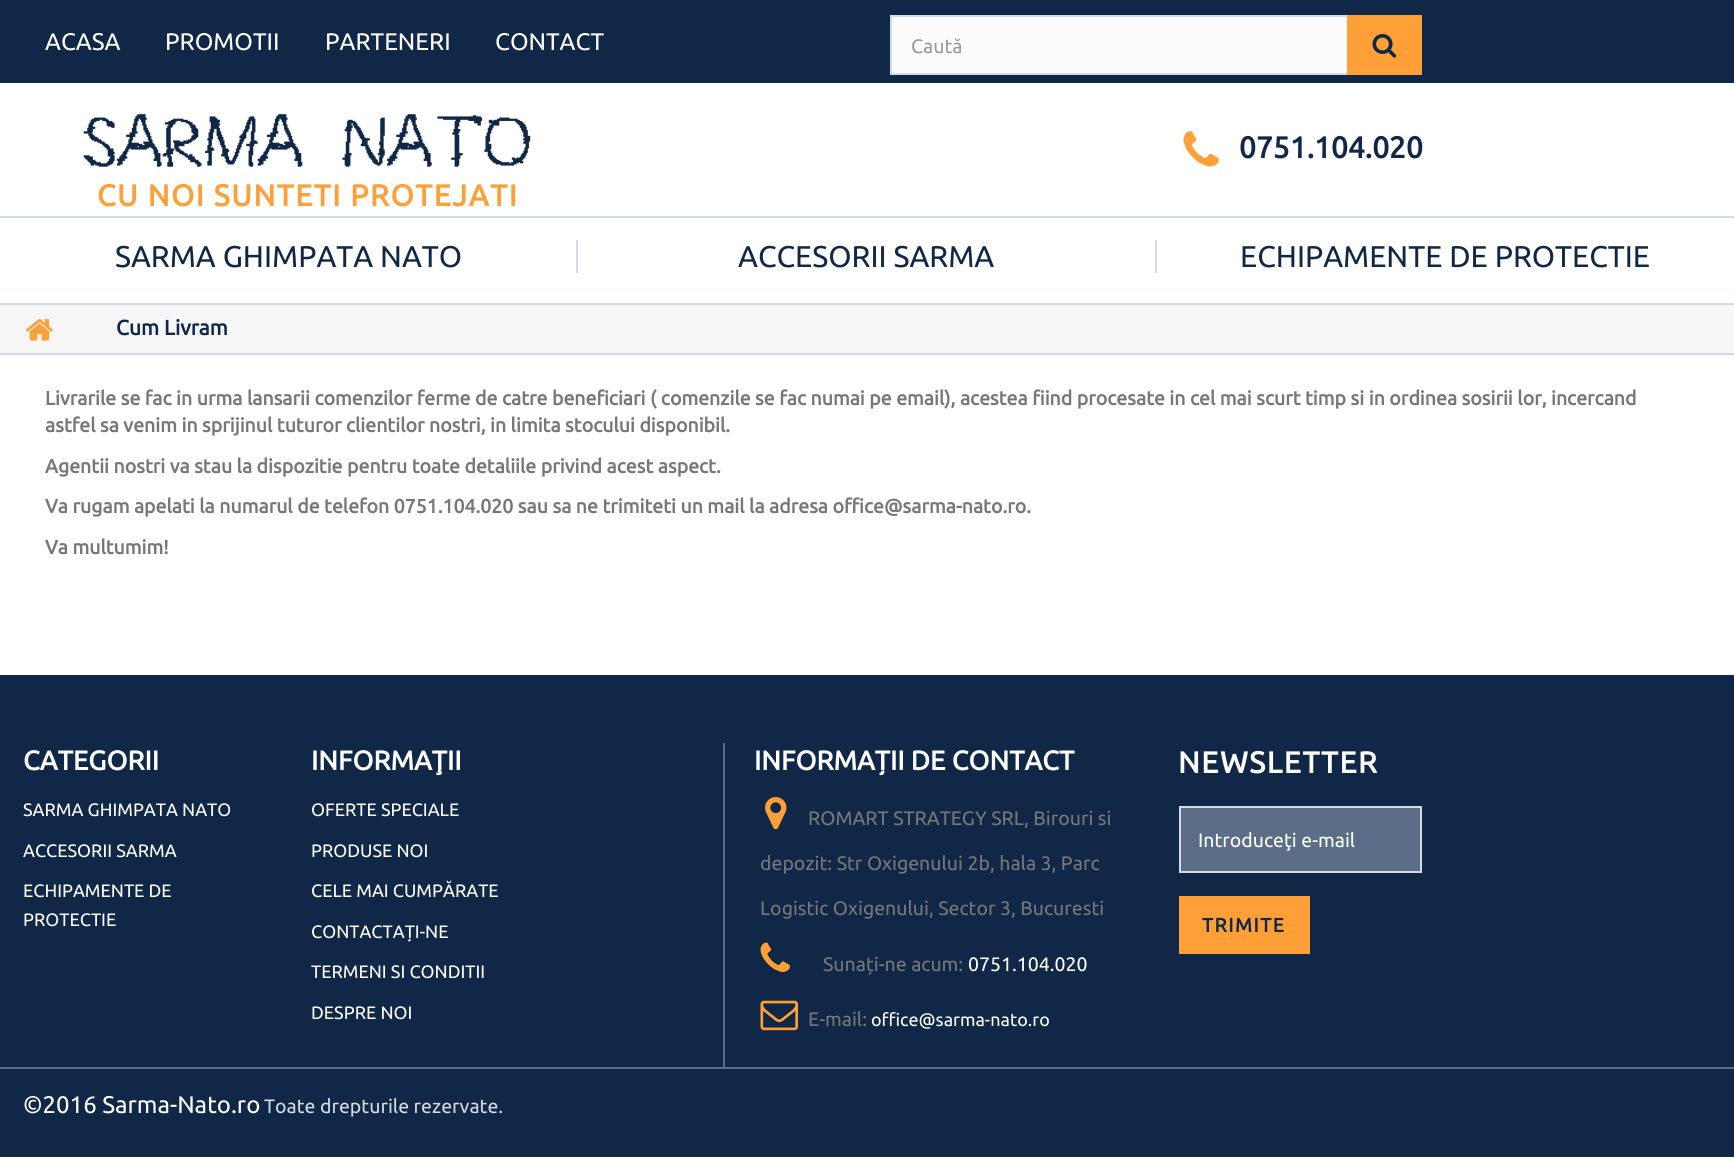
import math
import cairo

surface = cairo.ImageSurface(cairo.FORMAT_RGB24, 1734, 1172)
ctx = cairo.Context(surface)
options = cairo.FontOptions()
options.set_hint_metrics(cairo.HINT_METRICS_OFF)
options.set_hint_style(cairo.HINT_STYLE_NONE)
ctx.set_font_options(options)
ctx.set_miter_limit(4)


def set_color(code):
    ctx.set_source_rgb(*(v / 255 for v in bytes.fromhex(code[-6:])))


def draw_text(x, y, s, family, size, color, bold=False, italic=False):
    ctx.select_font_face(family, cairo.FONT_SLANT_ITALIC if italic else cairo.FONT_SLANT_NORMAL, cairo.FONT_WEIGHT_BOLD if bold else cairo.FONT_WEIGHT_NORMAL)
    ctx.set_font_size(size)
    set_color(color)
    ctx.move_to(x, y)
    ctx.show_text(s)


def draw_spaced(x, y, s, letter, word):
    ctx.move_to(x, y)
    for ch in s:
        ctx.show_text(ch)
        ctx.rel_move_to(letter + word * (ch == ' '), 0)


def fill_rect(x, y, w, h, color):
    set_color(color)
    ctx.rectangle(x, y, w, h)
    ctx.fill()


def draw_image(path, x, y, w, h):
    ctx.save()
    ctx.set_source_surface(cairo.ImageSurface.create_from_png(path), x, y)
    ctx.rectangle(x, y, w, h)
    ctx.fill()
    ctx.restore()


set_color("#ffffff")
ctx.paint()
fill_rect(0, 0, 1734, 83, "#102747")
draw_text(45, 50, "ACASA", "Ubuntu", 24, "#ffffff")
draw_text(165, 50, "PROMOTII", "Ubuntu", 24, "#ffffff")
draw_text(325, 50, "PARTENERI", "Ubuntu", 24, "#ffffff")
draw_text(495, 50, "CONTACT", "Ubuntu", 24, "#ffffff")
fill_rect(892, 17, 455, 56, "#fbfbfb")
ctx.rectangle(891, 16, 530, 58)
set_color("#d2dae3")
ctx.stroke()
draw_text(911, 53, "Caută", "Ubuntu", 19.5, "#999999")
fill_rect(1347, 15, 75, 60, "#fe9f38")
draw_image("assets/img1.png", 1372, 34, 25, 24)
draw_image("assets/img2.png", 1183, 131, 36, 36)
draw_text(1239, 158, "0751.104.020", "Ubuntu", 30, "#102747", bold=True)
draw_image("assets/img3.png", 83, 114, 448, 53)
set_color("#fe9f38")
draw_spaced(97, 206, "CU NOI SUNTETI PROTEJATI", 1.5, 0)
fill_rect(0, 216, 1734, 2, "#d2dae3")
fill_rect(0, 303, 1734, 2, "#d2dae3")
fill_rect(576, 240, 2, 33, "#d2dae3")
draw_text(115, 267, "SARMA GHIMPATA NATO", "Ubuntu", 30, "#102747")
fill_rect(1155, 240, 2, 33, "#d2dae3")
draw_text(738, 267, "ACCESORII SARMA", "Ubuntu", 30, "#102747")
draw_text(1240, 267, "ECHIPAMENTE DE PROTECTIE", "Ubuntu", 30, "#102747")
fill_rect(0, 305, 1734, 48, "#f6f6f6")
fill_rect(0, 353, 1734, 2, "#d2dae3")
draw_image("assets/img4.png", 26, 319, 27, 22)
draw_text(116, 335, "Cum Livram", "Ubuntu", 21, "#102747", bold=True)
draw_text(45, 405, "Livrarile se fac in urma lansarii comenzilor ferme de catre beneficiari ( comenzile se fac numai pe email), acestea fiind procesate in cel mai scurt timp si in ordinea sosirii lor, incercand", "Ubuntu", 19.5, "#777777", bold=True)
draw_text(45, 432, "astfel sa venim in sprijinul tuturor clientilor nostri, in limita stocului disponibil.", "Ubuntu", 19.5, "#777777", bold=True)
draw_text(45, 473, "Agentii nostri va stau la dispozitie pentru toate detaliile privind acest aspect.", "Ubuntu", 19.5, "#777777", bold=True)
draw_text(45, 513, "Va rugam apelati la numarul de telefon 0751.104.020 sau sa ne trimiteti un mail la adresa office@sarma-nato.ro.", "Ubuntu", 19.5, "#777777", bold=True)
draw_text(45, 554, "Va multumim!", "Ubuntu", 19.5, "#777777", bold=True)
fill_rect(0, 675, 1734, 482, "#102747")
draw_text(23, 770, "CATEGORII", "Ubuntu", 27, "#ffffff", bold=True)
draw_text(23, 816, "SARMA GHIMPATA NATO", "Ubuntu", 18, "#ffffff")
draw_text(23, 857, "ACCESORII SARMA", "Ubuntu", 18, "#ffffff")
draw_text(23, 897, "ECHIPAMENTE DE", "Ubuntu", 18, "#ffffff")
draw_text(23, 926, "PROTECTIE", "Ubuntu", 18, "#ffffff")
draw_text(311, 770, "INFORMAŢII", "Ubuntu", 27, "#ffffff", bold=True)
draw_text(311, 816, "OFERTE SPECIALE", "Ubuntu", 18, "#ffffff")
draw_text(311, 857, "PRODUSE NOI", "Ubuntu", 18, "#ffffff")
draw_text(311, 897, "CELE MAI CUMPĂRATE", "Ubuntu", 18, "#ffffff")
draw_text(311, 938, "CONTACTAȚI-NE", "Ubuntu", 18, "#ffffff")
draw_text(311, 978, "TERMENI SI CONDITII", "Ubuntu", 18, "#ffffff")
draw_text(311, 1019, "DESPRE NOI", "Ubuntu", 18, "#ffffff")
fill_rect(723, 743, 2, 324, "#5c6e87")
draw_text(754, 770, "INFORMAȚII DE CONTACT", "Ubuntu", 27, "#ffffff", bold=True)
draw_image("assets/img5.png", 765, 797, 22, 33)
draw_text(808, 825, "ROMART STRATEGY SRL, Birouri si", "Ubuntu", 19.5, "#777777")
draw_text(760, 870, "depozit: Str Oxigenului 2b, hala 3, Parc", "Ubuntu", 19.5, "#777777")
draw_text(760, 915, "Logistic Oxigenului, Sector 3, Bucuresti", "Ubuntu", 19.5, "#777777")
draw_image("assets/img6.png", 760, 942, 30, 30)
draw_text(823, 971, "Sunați-ne acum:", "Ubuntu", 19.5, "#777777")
draw_text(968, 971, "0751.104.020", "Ubuntu", 19.5, "#ffffff")
draw_image("assets/img7.png", 760, 1000, 38, 31)
draw_text(808, 1026, "E-mail:", "Ubuntu", 19.5, "#777777")
draw_text(871, 1026, "office@sarma-nato.ro", "Ubuntu", 18, "#ffffff")
ctx.select_font_face("Ubuntu", cairo.FONT_SLANT_NORMAL, cairo.FONT_WEIGHT_BOLD)
ctx.set_font_size(30)
draw_spaced(1178, 773, "NEWSLETTER", 1.5, 0)
set_color("#5c6e87")
ctx.rectangle(1180, 807, 241, 65)
ctx.fill_preserve()
set_color("#d2dae3")
ctx.stroke()
draw_text(1198, 847, "Introduceţi e-mail", "Ubuntu", 19.5, "#ffffff")
fill_rect(1179, 896, 131, 58, "#fe9f38")
ctx.select_font_face("Ubuntu", cairo.FONT_SLANT_NORMAL, cairo.FONT_WEIGHT_BOLD)
set_color("#102747")
draw_spaced(1202, 932, "TRIMITE", 1.5, 0)
fill_rect(0, 1067, 1734, 2, "#5c6e87")
draw_text(23, 1113, "©2016 Sarma-Nato.ro", "Ubuntu", 24, "#ffffff")
draw_text(264, 1113, "Toate drepturile rezervate.", "Ubuntu", 19.5, "#d2dae3")
surface.write_to_png("output.png")
